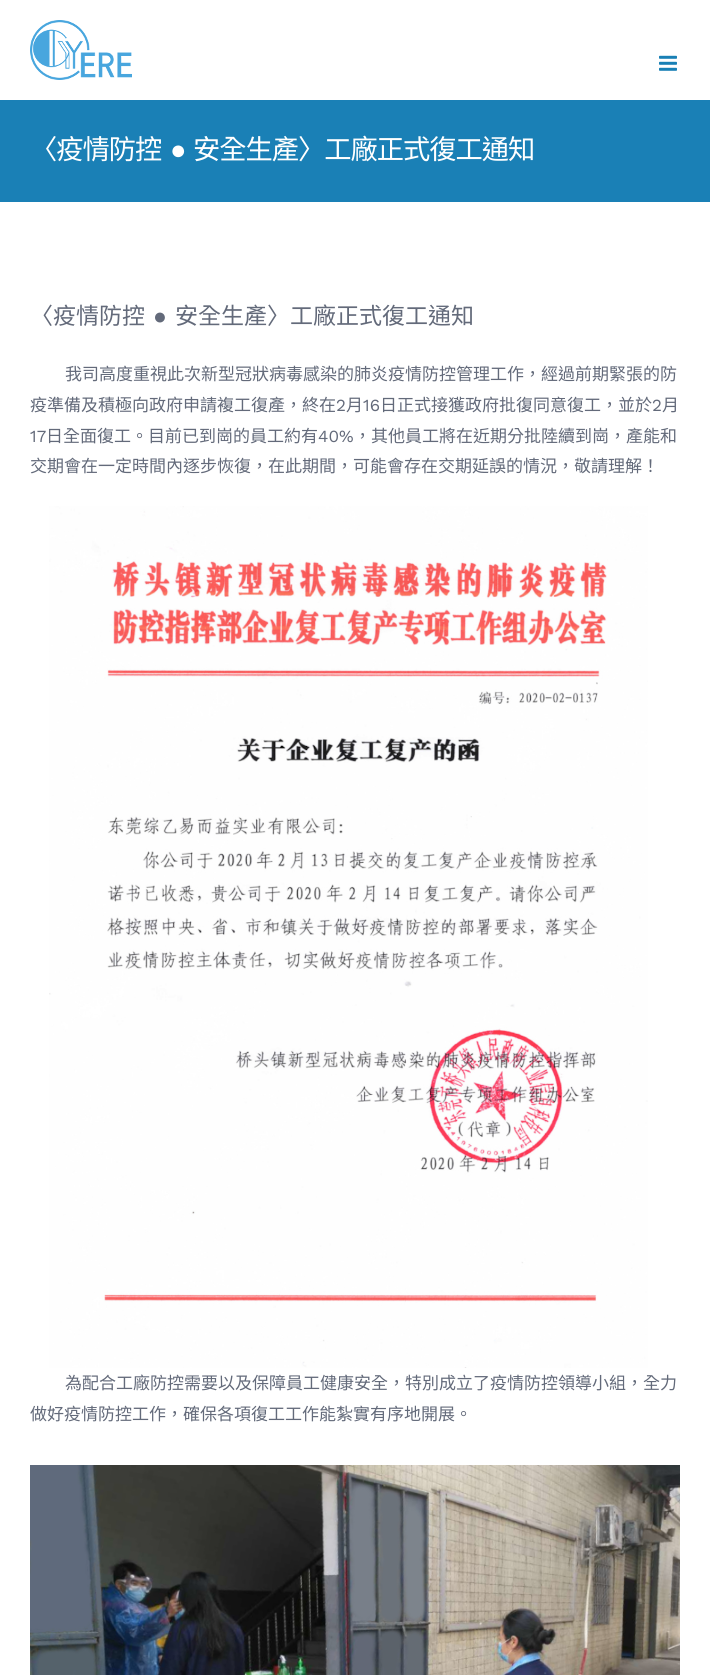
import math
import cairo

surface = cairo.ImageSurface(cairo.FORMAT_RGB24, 710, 1675)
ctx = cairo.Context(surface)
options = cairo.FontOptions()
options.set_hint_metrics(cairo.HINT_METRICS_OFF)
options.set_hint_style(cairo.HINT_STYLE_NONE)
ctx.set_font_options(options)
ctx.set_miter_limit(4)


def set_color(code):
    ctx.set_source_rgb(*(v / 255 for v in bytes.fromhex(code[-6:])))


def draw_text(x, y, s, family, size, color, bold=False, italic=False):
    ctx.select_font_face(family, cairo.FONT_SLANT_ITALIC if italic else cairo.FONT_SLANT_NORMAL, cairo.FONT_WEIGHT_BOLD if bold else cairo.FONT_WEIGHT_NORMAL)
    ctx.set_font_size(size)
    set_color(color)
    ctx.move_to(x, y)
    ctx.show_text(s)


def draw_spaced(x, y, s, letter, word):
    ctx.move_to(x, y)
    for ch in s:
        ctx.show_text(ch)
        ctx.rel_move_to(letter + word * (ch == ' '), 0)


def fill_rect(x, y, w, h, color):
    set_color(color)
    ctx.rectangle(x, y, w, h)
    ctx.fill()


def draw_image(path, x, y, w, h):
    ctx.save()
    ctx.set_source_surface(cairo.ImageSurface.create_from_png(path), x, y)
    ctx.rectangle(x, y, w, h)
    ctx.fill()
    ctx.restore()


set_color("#ffffff")
ctx.paint()
draw_image("assets/img1.png", 30, 20, 102, 60)
draw_image("assets/img2.png", 659, 55, 18, 16)
fill_rect(0, 100, 710, 102, "#1a80b6")
ctx.select_font_face("Noto Sans CJK TC")
ctx.set_font_size(27.25)
set_color("#ffffff")
draw_spaced(30, 159, "〈疫情防控", -1, 0)
ctx.select_font_face("Liberation Serif")
draw_spaced(170, 159, "●", -1, 0)
ctx.select_font_face("Noto Sans CJK TC")
draw_spaced(193, 159, "安全生產〉工廠正式復工通知", -1, 0)
draw_text(30, 324, "〈疫情防控", "Noto Sans CJK TC", 23, "#636a7a")
draw_text(153, 324, "●", "Liberation Serif", 23, "#636a7a")
draw_text(175, 324, "安全生產〉工廠正式復工通知", "Noto Sans CJK TC", 23, "#636a7a")
draw_text(65, 380, "我司高度重視此次新型冠狀病毒感染的肺炎疫情防控管理工作，經過前期緊張的防", "Noto Sans CJK TC", 17, "#636a7a")
draw_text(30, 411, "疫準備及積極向政府申請複工復產，終在", "Noto Sans CJK TC", 17, "#636a7a")
draw_text(336, 411, "2", "Work Sans", 17, "#636a7a")
draw_text(346, 411, "月", "Noto Sans CJK TC", 17, "#636a7a")
draw_text(363, 411, "16", "Work Sans", 17, "#636a7a")
draw_text(380, 411, "日正式接獲政府批復同意復工，並於", "Noto Sans CJK TC", 17, "#636a7a")
draw_text(652, 411, "2", "Work Sans", 17, "#636a7a")
draw_text(662, 411, "月", "Noto Sans CJK TC", 17, "#636a7a")
draw_text(30, 442, "17", "Work Sans", 17, "#636a7a")
draw_text(46, 442, "日全面復工。目前已到崗的員工約有", "Noto Sans CJK TC", 17, "#636a7a")
draw_text(318, 442, "40%", "Work Sans", 17, "#636a7a")
draw_text(354, 442, "，其他員工將在近期分批陸續到崗，產能和", "Noto Sans CJK TC", 17, "#636a7a")
draw_text(30, 472, "交期會在一定時間內逐步恢復，在此期間，可能會存在交期延誤的情況，敬請理解！", "Noto Sans CJK TC", 17, "#636a7a")
draw_image("assets/img3.png", 49, 506, 599, 862)
draw_text(65, 1389, "為配合工廠防控需要以及保障員工健康安全，特別成立了疫情防控領導小組，全力", "Noto Sans CJK TC", 17, "#636a7a")
draw_text(30, 1420, "做好疫情防控工作，確保各項復工工作能紮實有序地開展。", "Noto Sans CJK TC", 17, "#636a7a")
draw_image("assets/img4.png", 30, 1465, 650, 210)
surface.write_to_png("output.png")
